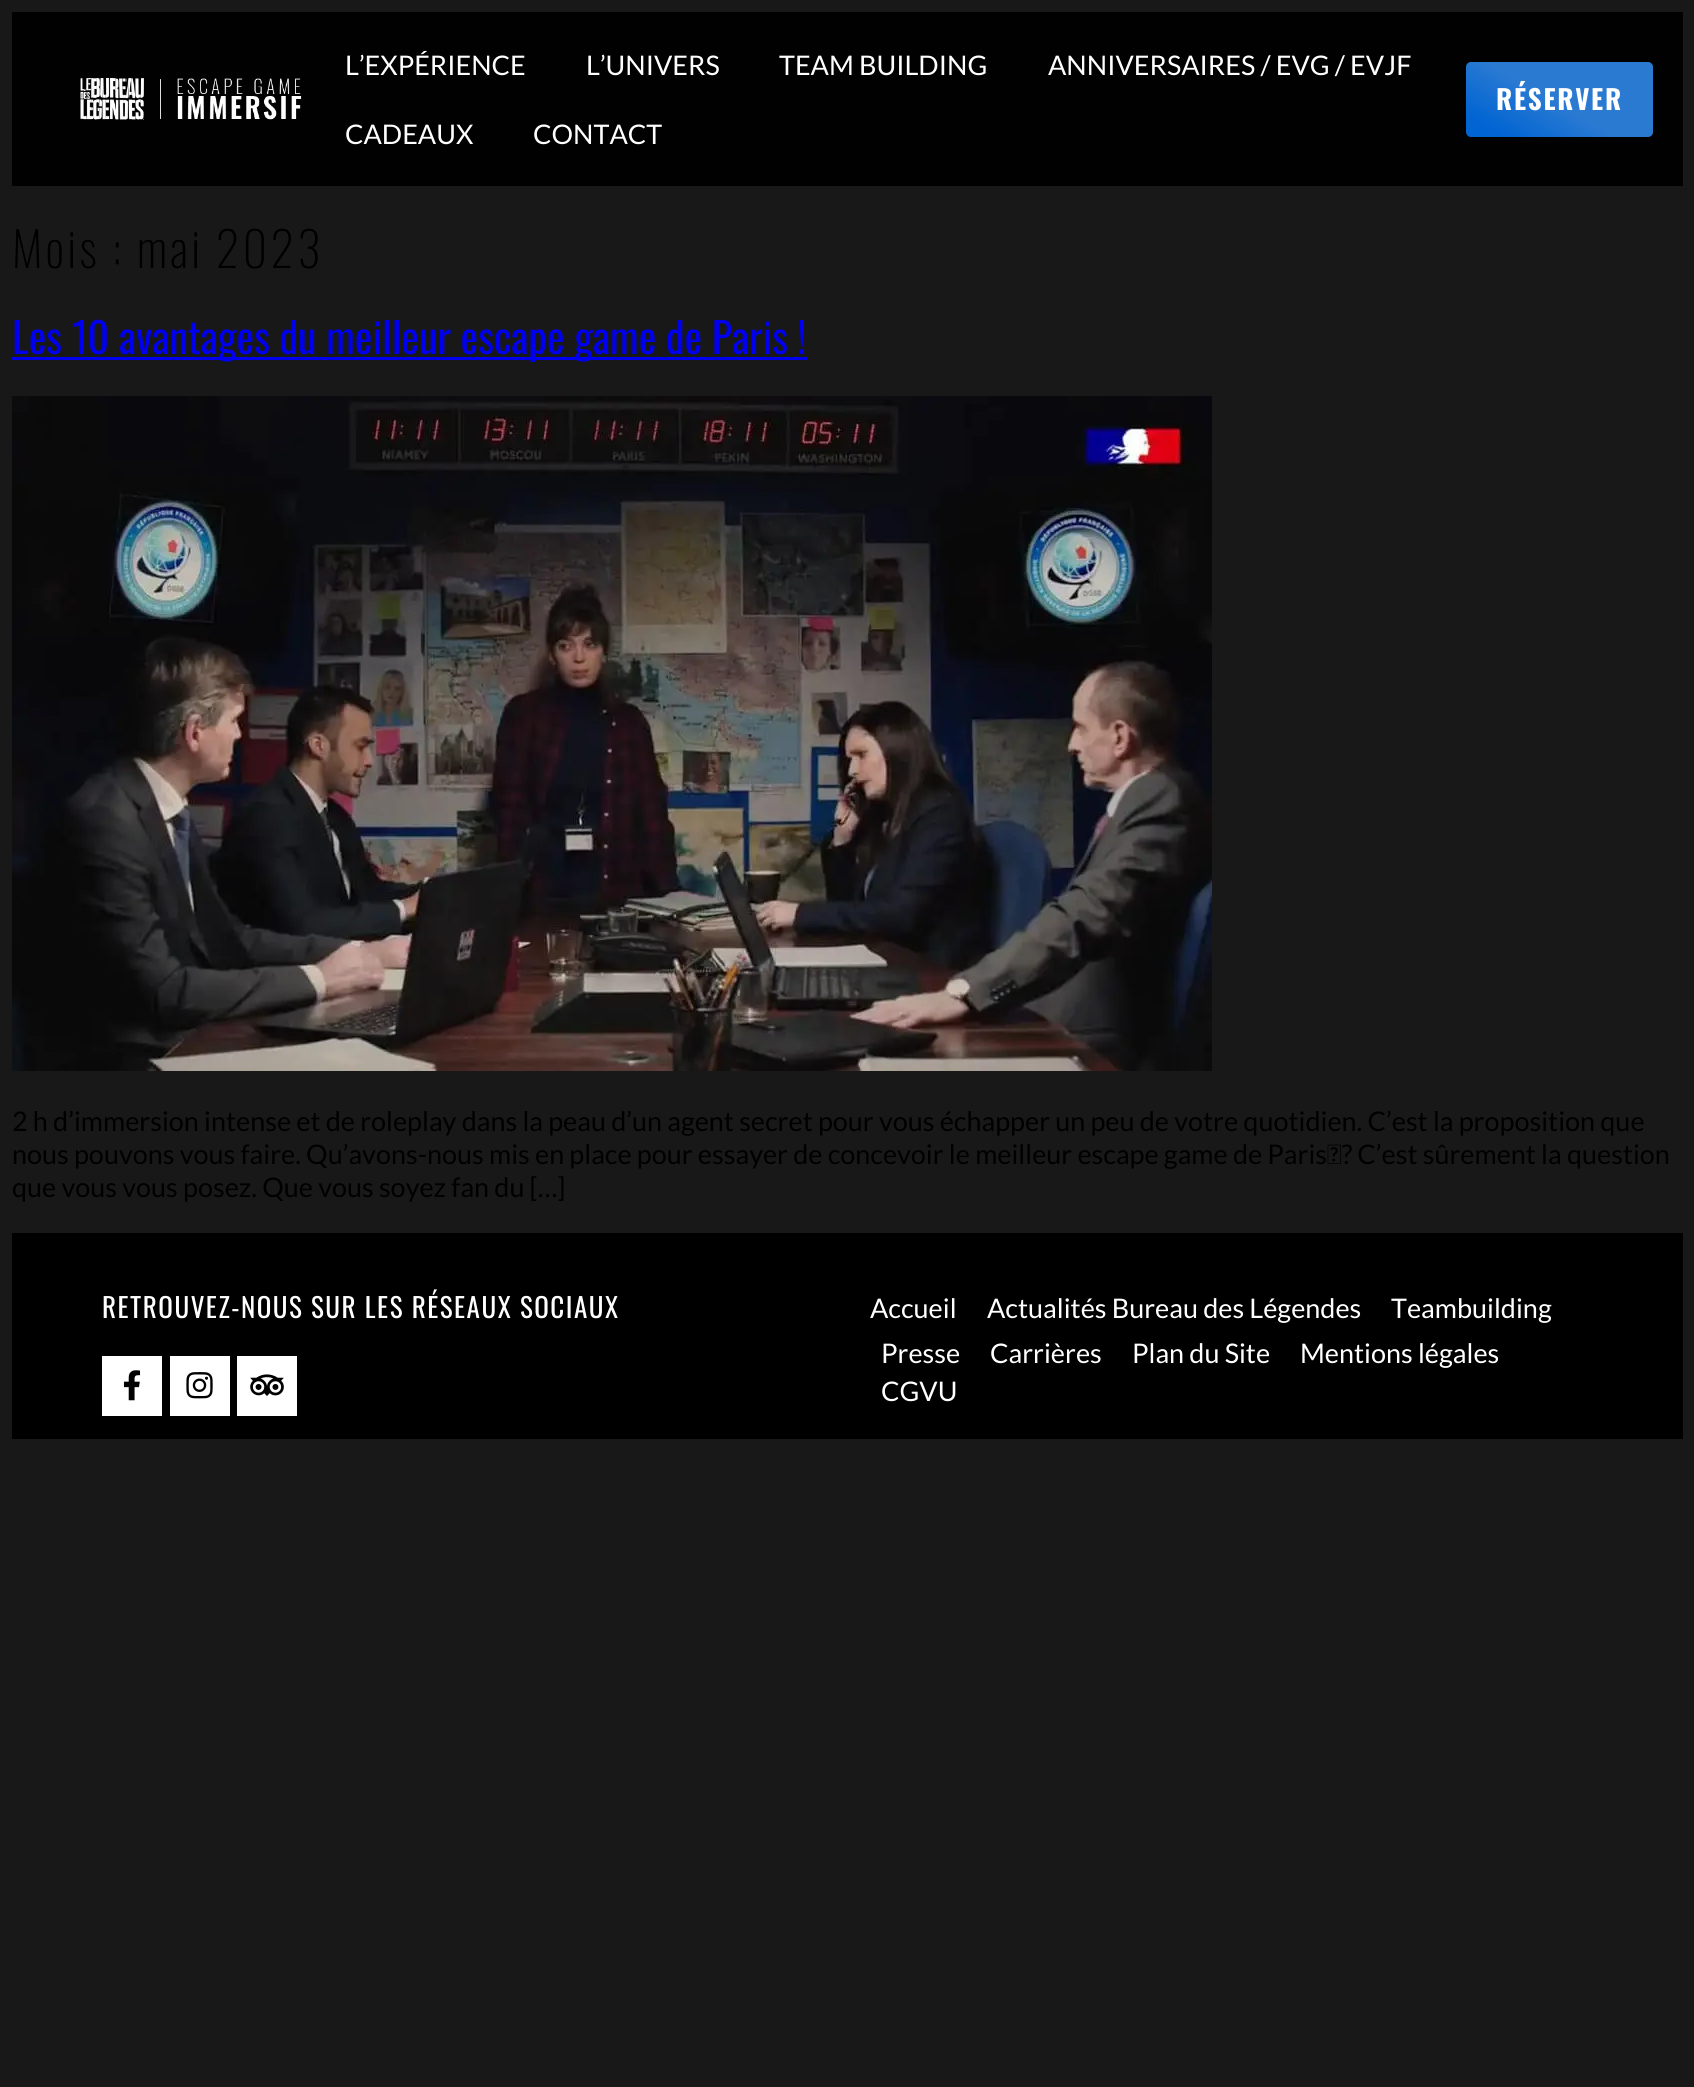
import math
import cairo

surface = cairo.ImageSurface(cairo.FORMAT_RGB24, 1694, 2087)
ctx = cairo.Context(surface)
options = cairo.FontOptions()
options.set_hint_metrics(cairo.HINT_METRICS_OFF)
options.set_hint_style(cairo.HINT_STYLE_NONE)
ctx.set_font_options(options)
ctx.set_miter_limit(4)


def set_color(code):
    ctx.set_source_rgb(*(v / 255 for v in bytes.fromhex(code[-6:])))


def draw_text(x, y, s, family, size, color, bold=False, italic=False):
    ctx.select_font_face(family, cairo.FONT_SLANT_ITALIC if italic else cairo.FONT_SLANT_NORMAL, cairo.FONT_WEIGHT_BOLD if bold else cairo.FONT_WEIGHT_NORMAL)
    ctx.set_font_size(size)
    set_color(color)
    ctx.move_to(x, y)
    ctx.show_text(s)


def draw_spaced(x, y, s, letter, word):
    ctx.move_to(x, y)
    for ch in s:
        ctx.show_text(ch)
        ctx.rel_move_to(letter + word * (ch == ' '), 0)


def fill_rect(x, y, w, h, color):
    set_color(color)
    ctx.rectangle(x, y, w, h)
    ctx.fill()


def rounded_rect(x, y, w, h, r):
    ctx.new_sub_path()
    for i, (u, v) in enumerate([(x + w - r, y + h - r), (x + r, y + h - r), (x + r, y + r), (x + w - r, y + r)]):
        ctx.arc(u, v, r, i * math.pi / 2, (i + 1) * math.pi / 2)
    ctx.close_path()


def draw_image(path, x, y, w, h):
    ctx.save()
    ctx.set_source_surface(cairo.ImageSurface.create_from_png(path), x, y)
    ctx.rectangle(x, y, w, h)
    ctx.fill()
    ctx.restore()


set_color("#181818")
ctx.paint()
fill_rect(12, 12, 1671, 174, "#020101")
draw_image("assets/img1.png", 80, 78, 222, 42)
draw_text(345, 75, "L’EXPÉRIENCE", "Lato", 27, "#ffffff")
draw_text(586, 75, "L’UNIVERS", "Lato", 27, "#ffffff")
draw_text(779, 75, "TEAM BUILDING", "Lato", 27, "#ffffff")
draw_text(1048, 75, "ANNIVERSAIRES / EVG / EVJF", "Lato", 27, "#ffffff")
draw_text(345, 144, "CADEAUX", "Lato", 27, "#ffffff")
draw_text(533, 144, "CONTACT", "Lato", 27, "#ffffff")
gradient = cairo.LinearGradient(1599, 30, 1520, 168)
gradient.add_color_stop_rgba(0.53, 0.165, 0.478, 0.824, 1)
gradient.add_color_stop_rgba(0.88, 0, 0.392, 0.824, 1)
ctx.set_source(gradient)
rounded_rect(1466, 62, 187, 75, 5)
ctx.fill()
ctx.select_font_face("Oswald", cairo.FONT_SLANT_NORMAL, cairo.FONT_WEIGHT_BOLD)
set_color("#ffffff")
draw_spaced(1496, 110, "RÉSERVER", 1.75, 0)
ctx.select_font_face("Oswald ExtraLight")
ctx.set_font_size(48)
set_color("#000000")
draw_spaced(12, 268, "Mois : mai 2023", 3.25, 0)
fill_rect(12, 357, 795, 3, "#0000ee")
draw_text(12, 354, "Les 10 avantages du meilleur escape game de Paris !", "Oswald", 42, "#0000ee")
draw_image("assets/img2.png", 12, 396, 1200, 675)
draw_text(12, 1131, "2 h d’immersion intense et de roleplay dans la peau d’un agent secret pour vous échapper un peu de votre quotidien. C’est la proposition que", "Lato", 27, "#000000")
draw_text(12, 1164, "nous pouvons vous faire. Qu’avons-nous mis en place pour essayer de concevoir le meilleur escape game de Paris ? C’est sûrement la question", "Lato", 27, "#000000")
draw_text(12, 1197, "que vous vous posez. Que vous soyez fan du […]", "Lato", 27, "#000000")
fill_rect(12, 1233, 1671, 206, "#000000")
ctx.select_font_face("Oswald")
ctx.set_font_size(27.1)
set_color("#ffffff")
draw_spaced(102, 1318, "RETROUVEZ-NOUS SUR LES RÉSEAUX SOCIAUX", 1.5, 0)
fill_rect(102, 1356, 60, 60, "#ffffff")
draw_image("assets/img3.png", 123, 1370, 18, 31)
fill_rect(170, 1356, 60, 60, "#ffffff")
draw_image("assets/img4.png", 186, 1372, 27, 27)
fill_rect(237, 1356, 60, 60, "#ffffff")
draw_image("assets/img5.png", 250, 1374, 34, 22)
draw_text(870, 1318, "Accueil", "Lato", 27, "#ffffff")
draw_text(987, 1318, "Actualités Bureau des Légendes", "Lato", 27, "#ffffff")
draw_text(1391, 1318, "Teambuilding", "Lato", 27, "#ffffff")
draw_text(881, 1363, "Presse", "Lato", 27, "#ffffff")
draw_text(990, 1363, "Carrières", "Lato", 27, "#ffffff")
draw_text(1132, 1363, "Plan du Site", "Lato", 27, "#ffffff")
draw_text(1300, 1363, "Mentions légales", "Lato", 27, "#ffffff")
draw_text(881, 1401, "CGVU", "Lato", 27, "#ffffff")
surface.write_to_png("output.png")
